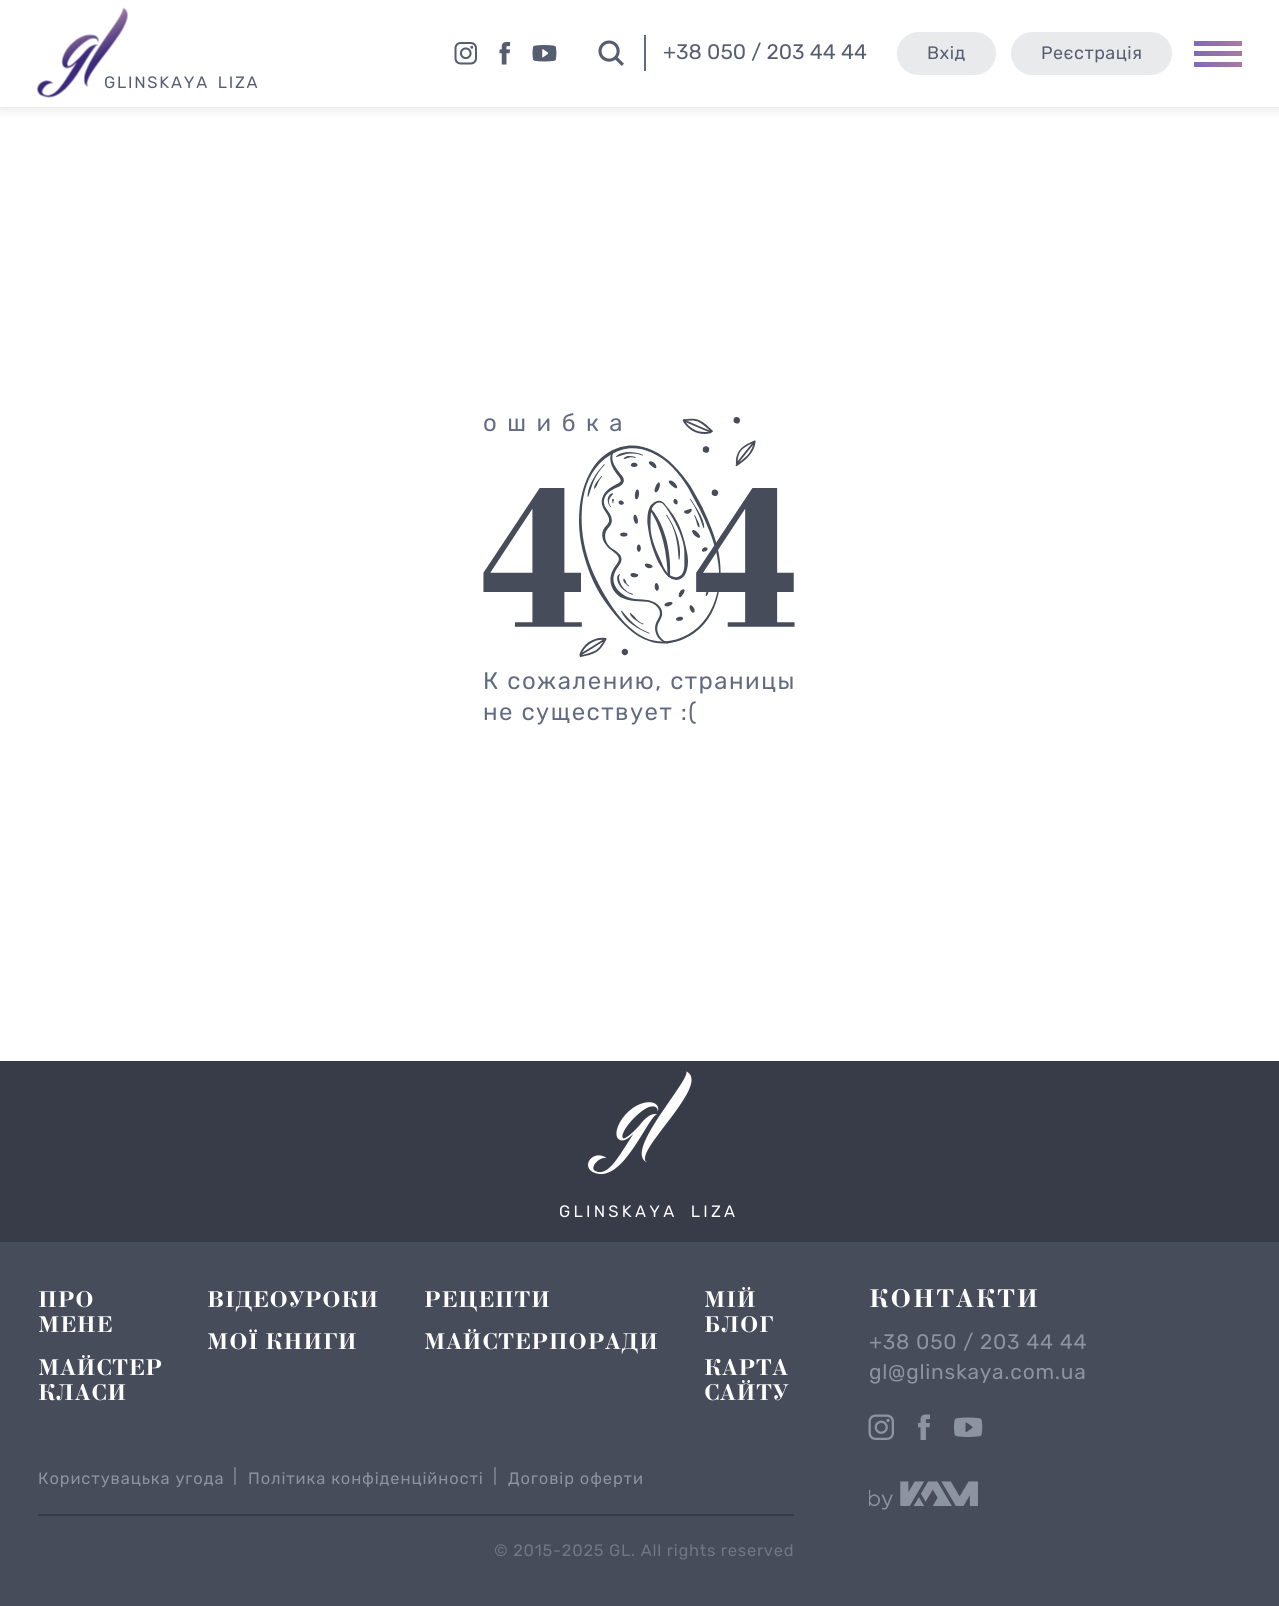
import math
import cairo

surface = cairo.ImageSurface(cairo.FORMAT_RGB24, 1279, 1606)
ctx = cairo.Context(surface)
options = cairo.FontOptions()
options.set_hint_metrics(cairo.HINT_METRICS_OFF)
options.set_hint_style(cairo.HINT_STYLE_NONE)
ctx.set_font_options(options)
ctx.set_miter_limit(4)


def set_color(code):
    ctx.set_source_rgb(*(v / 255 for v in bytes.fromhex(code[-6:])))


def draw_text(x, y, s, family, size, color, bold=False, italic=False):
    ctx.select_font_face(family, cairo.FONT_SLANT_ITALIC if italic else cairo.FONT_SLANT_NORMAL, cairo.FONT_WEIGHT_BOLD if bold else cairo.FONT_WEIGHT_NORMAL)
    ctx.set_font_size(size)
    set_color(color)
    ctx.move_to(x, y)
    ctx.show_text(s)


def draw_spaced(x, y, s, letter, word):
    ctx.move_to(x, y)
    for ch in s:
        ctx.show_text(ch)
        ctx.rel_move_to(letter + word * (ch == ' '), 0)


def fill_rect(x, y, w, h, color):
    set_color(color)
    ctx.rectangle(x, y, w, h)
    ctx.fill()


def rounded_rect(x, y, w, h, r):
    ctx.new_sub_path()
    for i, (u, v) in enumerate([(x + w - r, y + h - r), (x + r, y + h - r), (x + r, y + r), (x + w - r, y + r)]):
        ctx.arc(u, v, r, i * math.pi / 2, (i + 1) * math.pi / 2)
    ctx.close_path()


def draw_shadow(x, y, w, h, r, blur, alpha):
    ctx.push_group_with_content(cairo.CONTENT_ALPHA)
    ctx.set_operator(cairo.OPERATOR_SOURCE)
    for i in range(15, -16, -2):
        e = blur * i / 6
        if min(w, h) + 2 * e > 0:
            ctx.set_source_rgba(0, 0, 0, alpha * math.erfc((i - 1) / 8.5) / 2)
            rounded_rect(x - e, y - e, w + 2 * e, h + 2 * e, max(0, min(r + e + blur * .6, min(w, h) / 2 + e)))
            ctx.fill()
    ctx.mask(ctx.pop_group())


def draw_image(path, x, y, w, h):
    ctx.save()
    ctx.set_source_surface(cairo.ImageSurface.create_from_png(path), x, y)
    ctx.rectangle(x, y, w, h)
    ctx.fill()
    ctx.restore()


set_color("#ffffff")
ctx.paint()
set_color("#000000")
draw_shadow(0, 0, 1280, 107, 0, 6, 0.15)
fill_rect(0, 0, 1279, 107, "#ffffff")
draw_image("assets/img1.png", 454, 42, 23, 23)
draw_image("assets/img2.png", 499, 42, 12, 23)
draw_image("assets/img3.png", 532, 45, 25, 17)
draw_image("assets/img4.png", 598, 40, 26, 26)
fill_rect(644, 35, 2, 36, "#626a81")
draw_text(663, 59, "+38 050 / 203 44 44", "Rubik", 21, "#565d71")
set_color("#e8eaec")
rounded_rect(897, 32, 99, 43, 21.5)
ctx.fill()
ctx.set_font_size(18)
set_color("#565d71")
draw_spaced(927, 59, "Вхід", 0.5, 0)
set_color("#e8eaec")
rounded_rect(1011, 32, 161, 43, 21.5)
ctx.fill()
set_color("#565d71")
draw_spaced(1041, 59, "Реєстрація", 0.5, 0)
gradient = cairo.LinearGradient(1194, 53, 1242, 53)
gradient.add_color_stop_rgba(0, 0.502, 0.412, 0.733, 1)
gradient.add_color_stop_rgba(1, 0.663, 0.475, 0.631, 1)
ctx.set_source(gradient)
ctx.rectangle(1194, 51, 48, 5)
ctx.fill()
gradient = cairo.LinearGradient(1194, 43, 1242, 43)
gradient.add_color_stop_rgba(0, 0.502, 0.412, 0.733, 1)
gradient.add_color_stop_rgba(1, 0.663, 0.475, 0.631, 1)
ctx.set_source(gradient)
ctx.rectangle(1194, 41, 48, 5)
ctx.fill()
gradient = cairo.LinearGradient(1194, 64, 1242, 64)
gradient.add_color_stop_rgba(0, 0.502, 0.412, 0.733, 1)
gradient.add_color_stop_rgba(1, 0.663, 0.475, 0.631, 1)
ctx.set_source(gradient)
ctx.rectangle(1194, 62, 48, 5)
ctx.fill()
draw_image("assets/img5.png", 37, 7, 91, 91)
ctx.set_font_size(16.5)
set_color("#565d71")
draw_spaced(104, 88, "GLINSKAYA LIZA", 1.75, 3)
ctx.set_font_size(24)
set_color("#626a81")
draw_spaced(483, 431, "ошибка", 10.5, 0)
draw_image("assets/img6.png", 483, 417, 312, 240)
draw_spaced(483, 689, "К сожалению, страницы", 1.5, 0)
draw_spaced(483, 720, "не существует :(", 1.5, 0)
fill_rect(0, 1242, 1279, 364, "#474c5a")
fill_rect(0, 1061, 1279, 181, "#383c48")
draw_image("assets/img7.png", 588, 1071, 104, 104)
ctx.set_font_size(16.5)
set_color("#ffffff")
draw_spaced(559, 1217, "GLINSKAYA LIZA", 3.25, 6)
ctx.select_font_face("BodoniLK", cairo.FONT_SLANT_NORMAL, cairo.FONT_WEIGHT_BOLD)
ctx.set_font_size(24)
draw_spaced(38, 1307, "ПРО", 0.75, 0)
draw_spaced(38, 1332, "МЕНЕ", 0.75, 0)
draw_spaced(38, 1375, "МАЙСТЕР", 0.75, 0)
draw_spaced(38, 1400, "КЛАСИ", 0.75, 0)
draw_spaced(207, 1307, "ВІДЕОУРОКИ", 0.75, 0)
draw_spaced(207, 1349, "МОЇ КНИГИ", 0.75, 0)
draw_spaced(424, 1307, "РЕЦЕПТИ", 0.75, 0)
draw_spaced(424, 1349, "МАЙСТЕРПОРАДИ", 0.75, 0)
draw_spaced(704, 1307, "МІЙ", 0.75, 0)
draw_spaced(704, 1332, "БЛОГ", 0.75, 0)
draw_spaced(704, 1375, "КАРТА", 0.75, 0)
draw_spaced(704, 1400, "САЙТУ", 0.75, 0)
ctx.select_font_face("Rubik")
ctx.set_font_size(16.5)
set_color("#8c94a2")
draw_spaced(38, 1484, "Користувацька угода", 0.9, 0)
fill_rect(234, 1467, 2, 18, "#707785")
set_color("#8c94a2")
draw_spaced(248, 1484, "Політика конфіденційності", 0.9, 0)
fill_rect(494, 1467, 2, 18, "#707785")
set_color("#8c94a2")
draw_spaced(508, 1484, "Договір оферти", 0.9, 0)
fill_rect(38, 1514, 756, 2, "#383c48")
set_color("#707785")
draw_spaced(494, 1556, "© 2015-2025 GL. All rights reserved", 0.75, 0)
ctx.select_font_face("BodoniLK", cairo.FONT_SLANT_NORMAL, cairo.FONT_WEIGHT_BOLD)
ctx.set_font_size(27)
set_color("#ffffff")
draw_spaced(869, 1307, "КОНТАКТИ", 2, 0)
ctx.select_font_face("Rubik")
ctx.set_font_size(21)
set_color("#8c94a2")
draw_spaced(869, 1349, "+38 050 / 203 44 44", 0.75, 0)
draw_spaced(869, 1379, "gl@glinskaya.com.ua", 0.75, 0)
draw_image("assets/img8.png", 868, 1414, 26, 26)
draw_image("assets/img9.png", 918, 1414, 12, 26)
draw_image("assets/img10.png", 954, 1417, 29, 20)
draw_image("assets/img11.png", 869, 1481, 109, 29)
surface.write_to_png("output.png")
